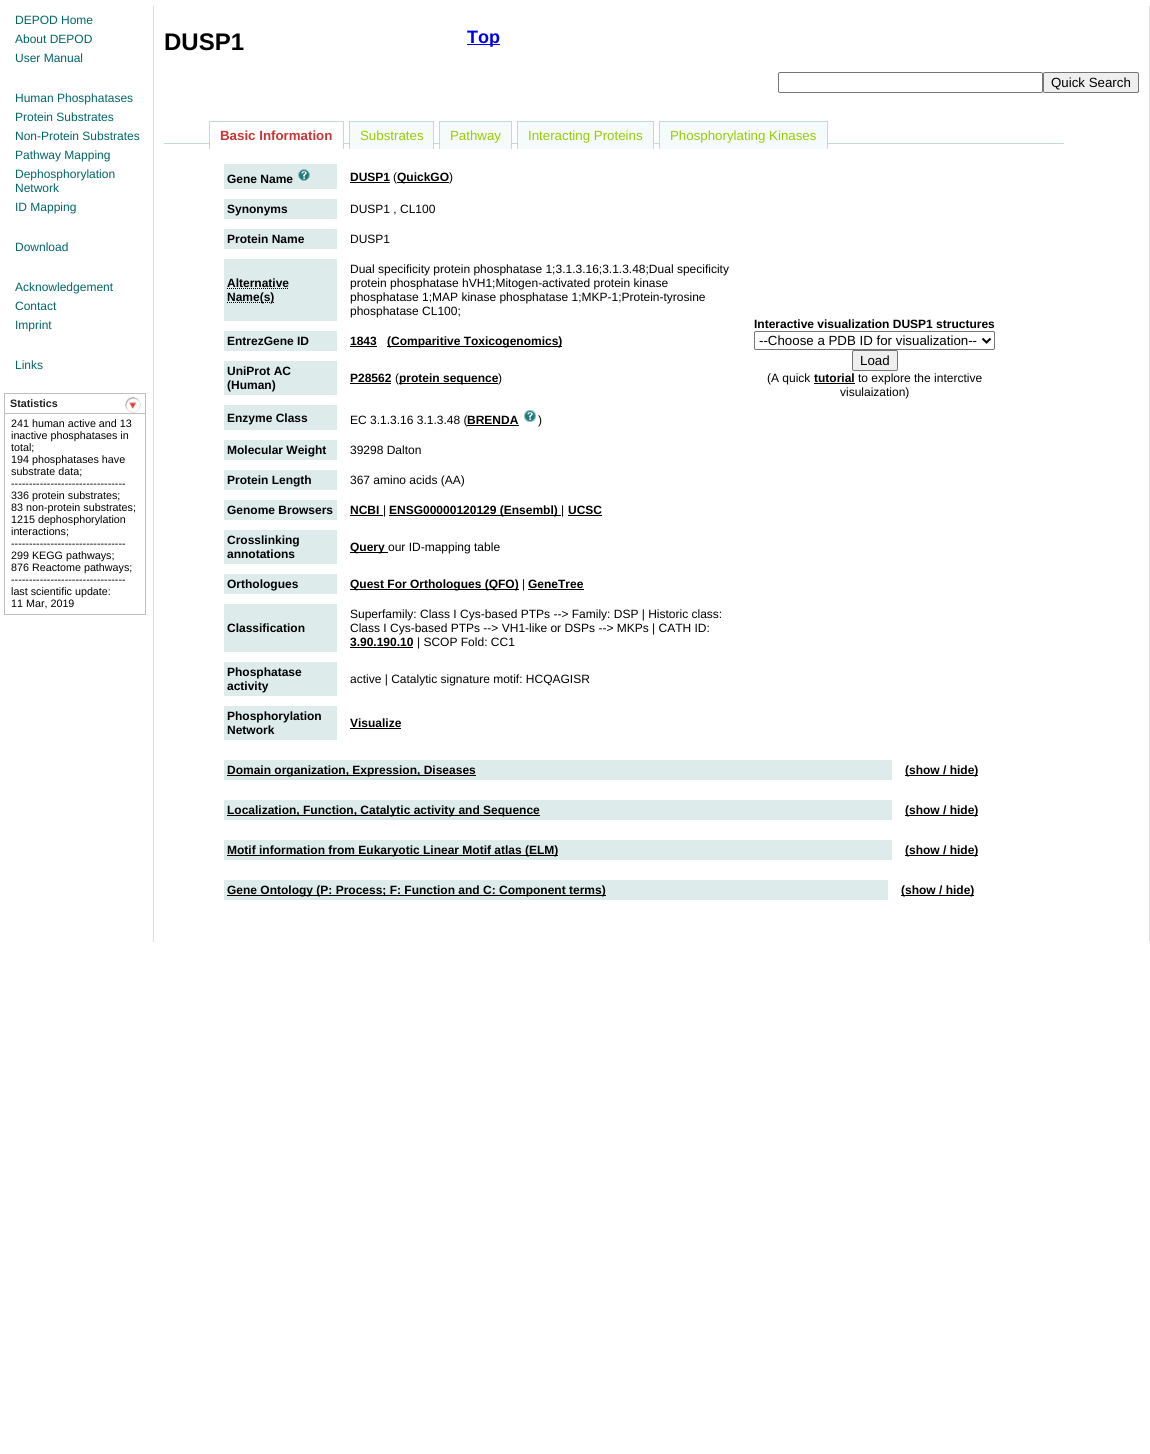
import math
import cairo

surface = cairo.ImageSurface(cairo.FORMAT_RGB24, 1150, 1454)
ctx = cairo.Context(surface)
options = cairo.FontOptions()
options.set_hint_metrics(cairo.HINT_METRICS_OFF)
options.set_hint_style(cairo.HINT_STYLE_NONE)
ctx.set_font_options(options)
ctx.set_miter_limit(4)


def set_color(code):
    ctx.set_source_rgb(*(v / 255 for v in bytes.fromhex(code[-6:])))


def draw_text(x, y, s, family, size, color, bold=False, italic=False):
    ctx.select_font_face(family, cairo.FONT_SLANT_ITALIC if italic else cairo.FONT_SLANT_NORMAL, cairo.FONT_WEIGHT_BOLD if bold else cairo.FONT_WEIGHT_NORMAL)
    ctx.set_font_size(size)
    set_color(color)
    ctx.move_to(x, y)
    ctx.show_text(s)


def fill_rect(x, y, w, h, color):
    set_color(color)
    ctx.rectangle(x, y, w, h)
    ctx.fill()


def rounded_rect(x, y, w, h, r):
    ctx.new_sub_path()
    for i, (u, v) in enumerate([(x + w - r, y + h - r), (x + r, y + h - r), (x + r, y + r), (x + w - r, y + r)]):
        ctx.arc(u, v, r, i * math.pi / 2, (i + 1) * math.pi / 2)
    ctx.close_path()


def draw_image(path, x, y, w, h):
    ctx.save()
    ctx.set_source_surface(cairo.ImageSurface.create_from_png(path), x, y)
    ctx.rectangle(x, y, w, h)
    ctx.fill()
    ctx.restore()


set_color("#ffffff")
ctx.paint()
draw_text(15, 24, "DEPOD Home", "Liberation Sans", 12, "#006666")
draw_text(15, 43, "About DEPOD", "Liberation Sans", 12, "#006666")
draw_text(15, 62, "User Manual", "Liberation Sans", 12, "#006666")
draw_text(15, 102, "Human Phosphatases", "Liberation Sans", 12, "#006666")
draw_text(15, 121, "Protein Substrates", "Liberation Sans", 12, "#006666")
draw_text(15, 140, "Non-Protein Substrates", "Liberation Sans", 12, "#006666")
draw_text(15, 159, "Pathway Mapping", "Liberation Sans", 12, "#006666")
draw_text(15, 178, "Dephosphorylation", "Liberation Sans", 12, "#006666")
draw_text(15, 192, "Network", "Liberation Sans", 12, "#006666")
draw_text(15, 211, "ID Mapping", "Liberation Sans", 12, "#006666")
draw_text(15, 251, "Download", "Liberation Sans", 12, "#006666")
draw_text(15, 291, "Acknowledgement", "Liberation Sans", 12, "#006666")
draw_text(15, 310, "Contact", "Liberation Sans", 12, "#006666")
draw_text(15, 329, "Imprint", "Liberation Sans", 12, "#006666")
draw_text(15, 369, "Links", "Liberation Sans", 12, "#006666")
ctx.rectangle(4.5, 393.5, 141, 221)
set_color("#bfbfbf")
ctx.set_line_width(1)
ctx.stroke()
fill_rect(5, 413, 140, 1, "#bfbfbf")
draw_text(10, 407, "Statistics", "Liberation Sans", 10.75, "#1f1f1f", bold=True)
draw_image("assets/img1.png", 125, 397, 16, 16)
draw_text(11, 427, "241 human active and 13", "Liberation Sans", 10.75, "#000000")
draw_text(11, 439, "inactive phosphatases in", "Liberation Sans", 10.75, "#000000")
draw_text(11, 451, "total;", "Liberation Sans", 10.75, "#000000")
draw_text(11, 463, "194 phosphatases have", "Liberation Sans", 10.75, "#000000")
draw_text(11, 475, "substrate data;", "Liberation Sans", 10.75, "#000000")
draw_text(11, 487, "--------------------------------", "Liberation Sans", 10.75, "#000000")
draw_text(11, 499, "336 protein substrates;", "Liberation Sans", 10.75, "#000000")
draw_text(11, 511, "83 non-protein substrates;", "Liberation Sans", 10.75, "#000000")
draw_text(11, 523, "1215 dephosphorylation", "Liberation Sans", 10.75, "#000000")
draw_text(11, 535, "interactions;", "Liberation Sans", 10.75, "#000000")
draw_text(11, 547, "--------------------------------", "Liberation Sans", 10.75, "#000000")
draw_text(11, 559, "299 KEGG pathways;", "Liberation Sans", 10.75, "#000000")
draw_text(11, 571, "876 Reactome pathways;", "Liberation Sans", 10.75, "#000000")
draw_text(11, 583, "--------------------------------", "Liberation Sans", 10.75, "#000000")
draw_text(11, 595, "last scientific update:", "Liberation Sans", 10.75, "#000000")
draw_text(11, 607, "11 Mar, 2019", "Liberation Sans", 10.75, "#000000")
fill_rect(1149, 6, 1, 936, "#dedede")
fill_rect(1149, 941, 1, 1, "#ffffff")
fill_rect(153, 6, 1, 936, "#dedede")
draw_text(164, 50, "DUSP1", "Liberation Sans", 24, "#000000", bold=True)
fill_rect(467, 44, 33, 1, "#0000ee")
draw_text(467, 43, "Top", "Liberation Sans", 18, "#0000ee", bold=True)
rounded_rect(778.5, 72.5, 264, 20, 1.5)
set_color("#767676")
ctx.stroke()
set_color("#efefef")
rounded_rect(1043.5, 72.5, 95, 20, 1.5)
ctx.fill_preserve()
set_color("#767676")
ctx.stroke()
draw_text(1051, 87, "Quick Search", "Liberation Sans", 13.3, "#000000")
draw_text(220, 140, "Basic Information", "Liberation Sans", 13.3, "#cc3333", bold=True)
fill_rect(164, 143, 900, 1, "#c1dad7")
fill_rect(210, 143, 133, 1, "#ffffff")
fill_rect(209, 121, 135, 1, "#c1dad7")
fill_rect(343, 121, 1, 28, "#c1dad7")
fill_rect(209, 121, 1, 28, "#c1dad7")
fill_rect(350, 122, 83, 27, "#f5fafa")
draw_text(360, 140, "Substrates", "Liberation Sans", 13.3, "#99cc00")
fill_rect(349, 121, 85, 1, "#c1dad7")
fill_rect(433, 121, 1, 28, "#c1dad7")
fill_rect(349, 121, 1, 28, "#c1dad7")
fill_rect(440, 122, 71, 27, "#f5fafa")
draw_text(450, 140, "Pathway", "Liberation Sans", 13.3, "#99cc00")
fill_rect(439, 121, 73, 1, "#c1dad7")
fill_rect(511, 121, 1, 28, "#c1dad7")
fill_rect(439, 121, 1, 28, "#c1dad7")
fill_rect(518, 122, 135, 27, "#f5fafa")
draw_text(528, 140, "Interacting Proteins", "Liberation Sans", 13.3, "#99cc00")
fill_rect(517, 121, 137, 1, "#c1dad7")
fill_rect(653, 121, 1, 28, "#c1dad7")
fill_rect(517, 121, 1, 28, "#c1dad7")
fill_rect(660, 122, 167, 27, "#f5fafa")
draw_text(670, 140, "Phosphorylating Kinases", "Liberation Sans", 13.3, "#99cc00")
fill_rect(659, 121, 169, 1, "#c1dad7")
fill_rect(827, 121, 1, 28, "#c1dad7")
fill_rect(659, 121, 1, 28, "#c1dad7")
fill_rect(224, 164, 113, 25, "#deebeb")
draw_text(227, 183, "Gene Name", "Liberation Sans", 12, "#000000", bold=True)
draw_image("assets/img2.png", 298, 169, 12, 12)
draw_text(350, 181, "DUSP1", "Liberation Sans", 12, "#000000", bold=True)
fill_rect(350, 182, 40, 1, "#000000")
draw_text(393, 181, "(", "Liberation Sans", 12, "#000000")
fill_rect(397, 182, 52, 1, "#000000")
draw_text(397, 181, "QuickGO", "Liberation Sans", 12, "#000000", bold=True)
draw_text(449, 181, ")", "Liberation Sans", 12, "#000000")
draw_text(754, 328, "Interactive visualization DUSP1 structures", "Liberation Sans", 12, "#000000", bold=True)
rounded_rect(754.5, 331.5, 240, 18, 1.5)
set_color("#767676")
ctx.stroke()
ctx.new_path()
ctx.move_to(982.5, 338.5)
ctx.line_to(986.5, 342.5)
ctx.line_to(990.5, 338.5)
set_color("#000000")
ctx.set_line_width(2)
ctx.stroke()
draw_text(759, 345, "--Choose a PDB ID for visualization--", "Liberation Sans", 13.3, "#000000")
set_color("#efefef")
rounded_rect(852.5, 350.5, 45, 20, 1.5)
ctx.fill_preserve()
set_color("#767676")
ctx.set_line_width(1)
ctx.stroke()
draw_text(860, 365, "Load", "Liberation Sans", 13.3, "#000000")
draw_text(767, 382, "(A quick", "Liberation Sans", 12, "#000000")
draw_text(814, 382, "tutorial", "Liberation Sans", 12, "#000000", bold=True)
fill_rect(814, 383, 41, 1, "#000000")
draw_text(858, 382, "to explore the interctive", "Liberation Sans", 12, "#000000")
draw_text(840, 396, "visulaization)", "Liberation Sans", 12, "#000000")
fill_rect(224, 199, 113, 20, "#deebeb")
draw_text(227, 213, "Synonyms", "Liberation Sans", 12, "#000000", bold=True)
draw_text(350, 213, "DUSP1 , CL100", "Liberation Sans", 12, "#000000")
fill_rect(224, 229, 113, 20, "#deebeb")
draw_text(227, 243, "Protein Name", "Liberation Sans", 12, "#000000", bold=True)
draw_text(350, 243, "DUSP1", "Liberation Sans", 12, "#000000")
fill_rect(224, 259, 113, 62, "#deebeb")
draw_text(227, 287, "Alternative", "Liberation Sans", 12, "#000000", bold=True)
ctx.new_path()
ctx.move_to(227, 288.5)
ctx.line_to(289, 288.5)
ctx.set_dash([1, 1])
ctx.stroke()
ctx.new_path()
ctx.move_to(227, 302.5)
ctx.line_to(274.5, 302.5)
ctx.stroke()
draw_text(227, 301, "Name(s)", "Liberation Sans", 12, "#000000", bold=True)
draw_text(350, 273, "Dual specificity protein phosphatase 1;3.1.3.16;3.1.3.48;Dual specificity", "Liberation Sans", 12, "#000000")
draw_text(350, 287, "protein phosphatase hVH1;Mitogen-activated protein kinase", "Liberation Sans", 12, "#000000")
draw_text(350, 301, "phosphatase 1;MAP kinase phosphatase 1;MKP-1;Protein-tyrosine", "Liberation Sans", 12, "#000000")
draw_text(350, 315, "phosphatase CL100;", "Liberation Sans", 12, "#000000")
fill_rect(224, 331, 113, 20, "#deebeb")
draw_text(227, 345, "EntrezGene ID", "Liberation Sans", 12, "#000000", bold=True)
draw_text(350, 345, "1843", "Liberation Sans", 12, "#000000", bold=True)
fill_rect(350, 346, 27, 1, "#000000")
fill_rect(387, 346, 175, 1, "#000000")
draw_text(387, 345, "(Comparitive Toxicogenomics)", "Liberation Sans", 12, "#000000", bold=True)
fill_rect(224, 361, 113, 34, "#deebeb")
draw_text(227, 375, "UniProt AC", "Liberation Sans", 12, "#000000", bold=True)
draw_text(227, 389, "(Human)", "Liberation Sans", 12, "#000000", bold=True)
draw_text(350, 382, "P28562", "Liberation Sans", 12, "#000000", bold=True)
fill_rect(350, 383, 41, 1, "#000000")
draw_text(395, 382, "(", "Liberation Sans", 12, "#000000")
fill_rect(399, 383, 99, 1, "#000000")
draw_text(399, 382, "protein sequence", "Liberation Sans", 12, "#000000", bold=True)
draw_text(498, 382, ")", "Liberation Sans", 12, "#000000")
fill_rect(224, 405, 113, 25, "#deebeb")
draw_text(227, 422, "Enzyme Class", "Liberation Sans", 12, "#000000", bold=True)
draw_text(350, 424, "EC 3.1.3.16 3.1.3.48 (", "Liberation Sans", 12, "#000000")
draw_text(467, 424, "BRENDA", "Liberation Sans", 12, "#000000", bold=True)
fill_rect(467, 425, 52, 1, "#000000")
draw_image("assets/img3.png", 524, 410, 12, 12)
draw_text(538, 424, ")", "Liberation Sans", 12, "#000000")
fill_rect(224, 440, 113, 20, "#deebeb")
draw_text(227, 454, "Molecular Weight", "Liberation Sans", 12, "#000000", bold=True)
draw_text(350, 454, "39298 Dalton", "Liberation Sans", 12, "#000000")
fill_rect(224, 470, 113, 20, "#deebeb")
draw_text(227, 484, "Protein Length", "Liberation Sans", 12, "#000000", bold=True)
draw_text(350, 484, "367 amino acids (AA)", "Liberation Sans", 12, "#000000")
fill_rect(224, 500, 113, 20, "#deebeb")
draw_text(227, 514, "Genome Browsers", "Liberation Sans", 12, "#000000", bold=True)
draw_text(350, 514, "NCBI", "Liberation Sans", 12, "#000000", bold=True)
fill_rect(350, 515, 33, 1, "#000000")
draw_text(383, 514, "|", "Liberation Sans", 12, "#000000")
fill_rect(389, 515, 172, 1, "#000000")
draw_text(389, 514, "ENSG00000120129 (Ensembl)", "Liberation Sans", 12, "#000000", bold=True)
draw_text(561, 514, "|", "Liberation Sans", 12, "#000000")
draw_text(568, 514, "UCSC", "Liberation Sans", 12, "#000000", bold=True)
fill_rect(568, 515, 34, 1, "#000000")
fill_rect(224, 530, 113, 34, "#deebeb")
draw_text(227, 544, "Crosslinking", "Liberation Sans", 12, "#000000", bold=True)
draw_text(227, 558, "annotations", "Liberation Sans", 12, "#000000", bold=True)
fill_rect(350, 552, 38, 1, "#000000")
draw_text(350, 551, "Query", "Liberation Sans", 12, "#000000", bold=True)
draw_text(388, 551, "our ID-mapping table", "Liberation Sans", 12, "#000000")
fill_rect(224, 574, 113, 20, "#deebeb")
draw_text(227, 588, "Orthologues", "Liberation Sans", 12, "#000000", bold=True)
fill_rect(350, 589, 169, 1, "#000000")
draw_text(350, 588, "Quest For Orthologues (QFO)", "Liberation Sans", 12, "#000000", bold=True)
draw_text(522, 588, "|", "Liberation Sans", 12, "#000000")
draw_text(528, 588, "GeneTree", "Liberation Sans", 12, "#000000", bold=True)
fill_rect(528, 589, 56, 1, "#000000")
fill_rect(224, 604, 113, 48, "#deebeb")
draw_text(227, 632, "Classification", "Liberation Sans", 12, "#000000", bold=True)
draw_text(350, 618, "Superfamily: Class I Cys-based PTPs --> Family: DSP | Historic class:", "Liberation Sans", 12, "#000000")
draw_text(350, 632, "Class I Cys-based PTPs --> VH1-like or DSPs --> MKPs | CATH ID:", "Liberation Sans", 12, "#000000")
draw_text(350, 646, "3.90.190.10", "Liberation Sans", 12, "#000000", bold=True)
fill_rect(350, 647, 63, 1, "#000000")
draw_text(417, 646, "| SCOP Fold: CC1", "Liberation Sans", 12, "#000000")
fill_rect(224, 662, 113, 34, "#deebeb")
draw_text(227, 676, "Phosphatase", "Liberation Sans", 12, "#000000", bold=True)
draw_text(227, 690, "activity", "Liberation Sans", 12, "#000000", bold=True)
draw_text(350, 683, "active | Catalytic signature motif: HCQAGISR", "Liberation Sans", 12, "#000000")
fill_rect(224, 706, 113, 34, "#deebeb")
draw_text(227, 720, "Phosphorylation", "Liberation Sans", 12, "#000000", bold=True)
draw_text(227, 734, "Network", "Liberation Sans", 12, "#000000", bold=True)
draw_text(350, 727, "Visualize", "Liberation Sans", 12, "#000000", bold=True)
fill_rect(350, 728, 51, 1, "#000000")
fill_rect(224, 760, 668, 20, "#deebeb")
fill_rect(227, 775, 249, 1, "#000000")
draw_text(227, 774, "Domain organization, Expression, Diseases", "Liberation Sans", 12, "#000000", bold=True)
fill_rect(905, 775, 73, 1, "#000000")
draw_text(905, 774, "(show / hide)", "Liberation Sans", 12, "#000000", bold=True)
fill_rect(224, 800, 668, 20, "#deebeb")
fill_rect(227, 815, 313, 1, "#000000")
draw_text(227, 814, "Localization, Function, Catalytic activity and Sequence", "Liberation Sans", 12, "#000000", bold=True)
fill_rect(905, 815, 73, 1, "#000000")
draw_text(905, 814, "(show / hide)", "Liberation Sans", 12, "#000000", bold=True)
fill_rect(224, 840, 668, 20, "#deebeb")
fill_rect(227, 855, 331, 1, "#000000")
draw_text(227, 854, "Motif information from Eukaryotic Linear Motif atlas (ELM)", "Liberation Sans", 12, "#000000", bold=True)
fill_rect(905, 855, 73, 1, "#000000")
draw_text(905, 854, "(show / hide)", "Liberation Sans", 12, "#000000", bold=True)
fill_rect(224, 880, 664, 20, "#deebeb")
fill_rect(227, 895, 379, 1, "#000000")
draw_text(227, 894, "Gene Ontology (P: Process; F: Function and C: Component terms)", "Liberation Sans", 12, "#000000", bold=True)
fill_rect(901, 895, 73, 1, "#000000")
draw_text(901, 894, "(show / hide)", "Liberation Sans", 12, "#000000", bold=True)
surface.write_to_png("output.png")
